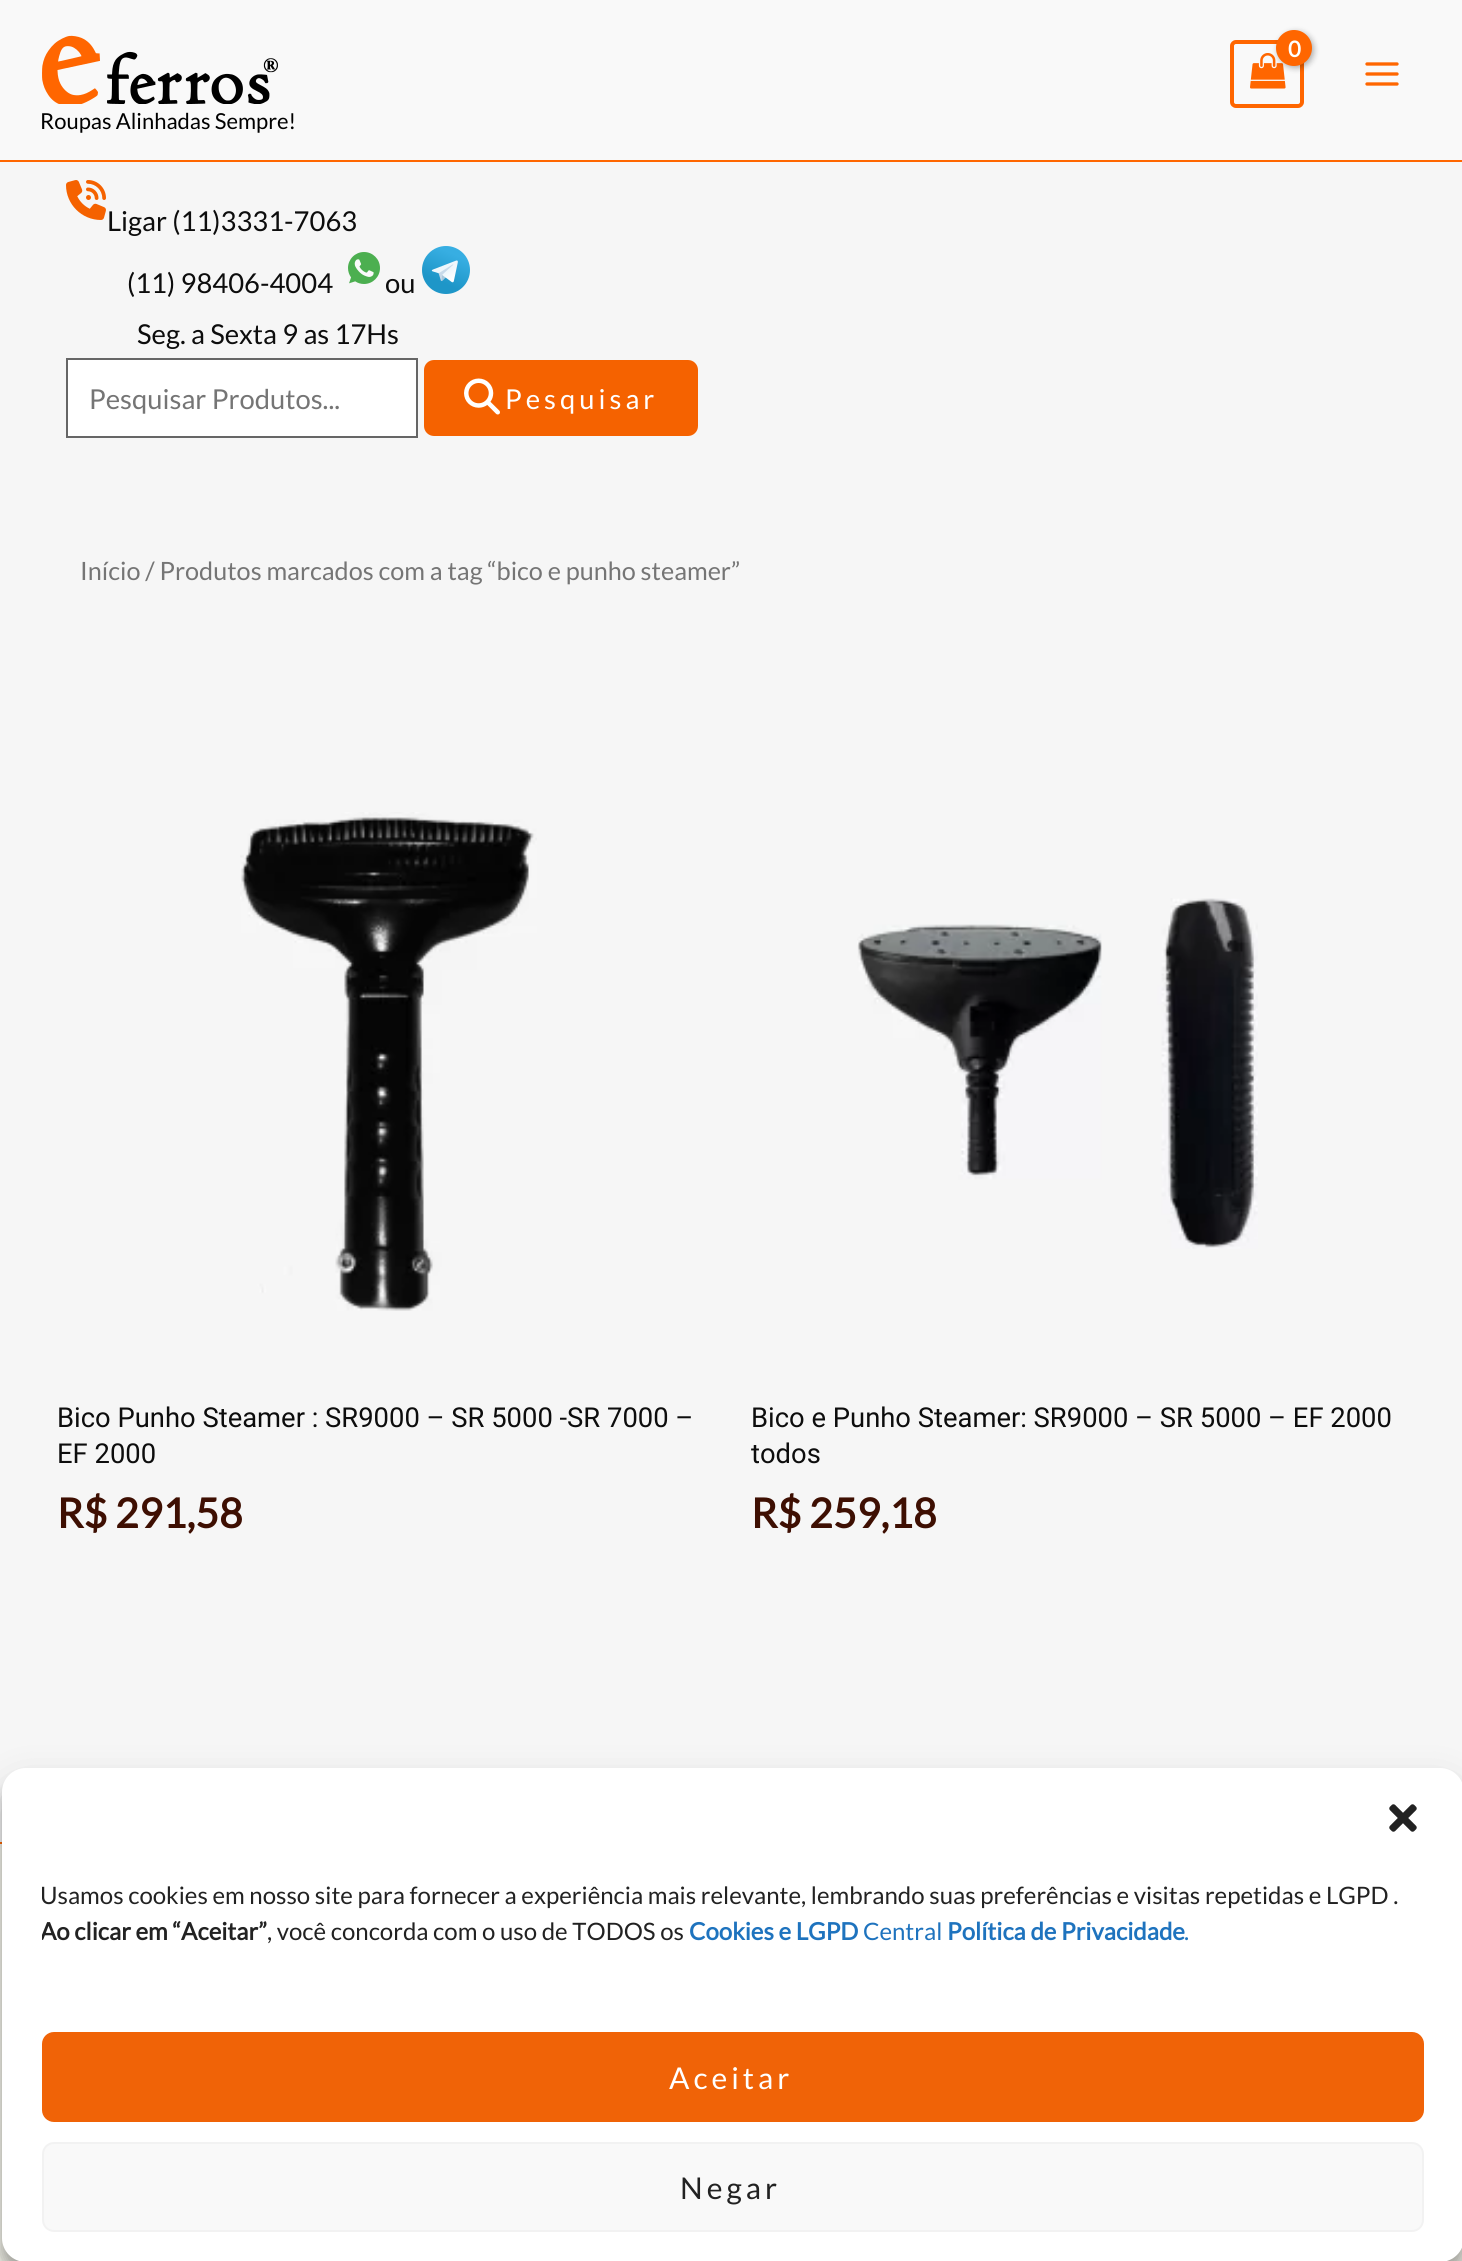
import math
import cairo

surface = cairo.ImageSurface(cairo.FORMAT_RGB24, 1462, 2261)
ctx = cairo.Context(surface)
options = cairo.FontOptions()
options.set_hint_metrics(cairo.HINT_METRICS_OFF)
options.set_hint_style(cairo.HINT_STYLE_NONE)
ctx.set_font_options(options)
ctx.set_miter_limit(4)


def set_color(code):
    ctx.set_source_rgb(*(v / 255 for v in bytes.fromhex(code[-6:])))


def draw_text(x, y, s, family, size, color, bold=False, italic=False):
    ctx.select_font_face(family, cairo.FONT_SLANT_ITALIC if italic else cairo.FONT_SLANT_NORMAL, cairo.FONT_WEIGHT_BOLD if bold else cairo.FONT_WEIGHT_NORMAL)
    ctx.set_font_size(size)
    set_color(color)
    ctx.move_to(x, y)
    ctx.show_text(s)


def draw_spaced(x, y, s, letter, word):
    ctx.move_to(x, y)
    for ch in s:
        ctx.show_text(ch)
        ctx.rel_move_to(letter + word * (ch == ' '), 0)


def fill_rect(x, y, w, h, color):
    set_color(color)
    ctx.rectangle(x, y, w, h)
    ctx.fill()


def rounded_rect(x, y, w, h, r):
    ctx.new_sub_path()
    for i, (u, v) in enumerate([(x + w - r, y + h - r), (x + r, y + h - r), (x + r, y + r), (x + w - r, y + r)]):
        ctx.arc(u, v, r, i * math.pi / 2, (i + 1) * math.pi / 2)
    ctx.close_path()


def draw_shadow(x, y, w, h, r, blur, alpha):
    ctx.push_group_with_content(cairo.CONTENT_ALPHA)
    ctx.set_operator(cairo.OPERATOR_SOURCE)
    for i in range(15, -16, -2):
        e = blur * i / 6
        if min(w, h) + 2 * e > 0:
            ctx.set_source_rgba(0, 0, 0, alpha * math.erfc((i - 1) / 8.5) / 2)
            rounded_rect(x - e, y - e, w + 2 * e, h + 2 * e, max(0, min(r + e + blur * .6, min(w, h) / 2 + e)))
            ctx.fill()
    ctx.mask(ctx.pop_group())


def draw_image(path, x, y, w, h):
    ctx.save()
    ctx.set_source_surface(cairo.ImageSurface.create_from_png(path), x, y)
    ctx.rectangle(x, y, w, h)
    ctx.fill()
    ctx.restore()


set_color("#f6f6f6")
ctx.paint()
fill_rect(0, 0, 1462, 160, "#f9f9f9")
fill_rect(0, 160, 1462, 2, "#ff6600")
rounded_rect(1232, 42, 70, 64, 4)
ctx.set_line_width(4)
ctx.stroke()
draw_image("assets/img1.png", 1250, 53, 36, 36)
set_color("#000000")
draw_shadow(1278, 32, 36, 36, 18, 3, 0.3)
set_color("#ff6600")
ctx.arc(1294, 48, 18, 0, 2 * math.pi)
ctx.fill()
ctx.select_font_face("Lato", cairo.FONT_SLANT_NORMAL, cairo.FONT_WEIGHT_BOLD)
ctx.set_font_size(22)
set_color("#ffffff")
draw_spaced(1288, 57, "0", -1, 0)
draw_image("assets/img2.png", 1365, 62, 34, 24)
draw_image("assets/img3.png", 42, 35, 236, 69)
draw_text(40, 129, "Roupas Alinhadas Sempre!", "Lato", 22, "#000000")
draw_image("assets/img4.png", 66, 180, 40, 40)
draw_text(107, 231, "Ligar (11)3331-7063", "Lato", 27.4, "#0d0d0d")
draw_text(127, 293, "(11) 98406-4004", "Lato", 27.4, "#0d0d0d")
draw_image("assets/img5.png", 348, 252, 32, 32)
draw_text(385, 293, "ou", "Lato", 27.4, "#0d0d0d")
draw_image("assets/img6.png", 422, 246, 48, 48)
draw_text(137, 344, "Seg. a Sexta 9 as 17Hs", "Lato", 27.4, "#0d0d0d")
set_color("#ffffff")
ctx.rectangle(67, 359, 350, 78)
ctx.fill_preserve()
set_color("#666666")
ctx.set_line_width(2)
ctx.stroke()
draw_text(89, 409, "Pesquisar Produtos...", "Lato", 27.4, "#757575")
set_color("#f56200")
rounded_rect(424, 360, 274, 76, 10)
ctx.fill()
draw_image("assets/img7.png", 464, 378, 36, 37)
set_color("#ffffff")
draw_spaced(505, 409, "Pesquisar", 4, 0)
draw_text(80, 580, "Início / Produtos marcados com a tag “bico e punho steamer”", "Lato", 25.2, "#757575")
draw_image("assets/img8.png", 240, 812, 297, 499)
draw_text(57, 1427, "Bico Punho Steamer : SR9000 – SR 5000 -SR 7000 –", "Roboto", 27.4, "#0d0d0d")
draw_text(57, 1463, "EF 2000", "Roboto", 27.4, "#0d0d0d")
draw_text(57, 1528, "R$ 291,58", "Lato", 41, "#3e0f02", bold=True)
draw_image("assets/img9.png", 857, 898, 401, 351)
draw_text(751, 1427, "Bico e Punho Steamer: SR9000 – SR 5000 – EF 2000", "Roboto", 27.4, "#0d0d0d")
draw_text(751, 1463, "todos", "Roboto", 27.4, "#0d0d0d")
draw_text(751, 1528, "R$ 259,18", "Lato", 41, "#3e0f02", bold=True)
fill_rect(0, 1844, 1462, 417, "#f5f5ec")
fill_rect(0, 1842, 2, 2, "#ff6600")
set_color("#000000")
draw_shadow(2, 1780, 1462, 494, 24, 6, 0.23)
draw_shadow(2, 1788, 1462, 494, 24, 20, 0.19)
set_color("#ffffff")
rounded_rect(2, 1768, 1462, 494, 24)
ctx.fill()
draw_image("assets/img10.png", 1389, 1804, 28, 28)
ctx.save()
ctx.rectangle(42, 1878, 1382, 114)
ctx.clip()
draw_text(40, 1904, "Usamos cookies em nosso site para fornecer a experiência mais relevante, lembrando suas preferências e visitas repetidas e LGPD .", "Lato", 24, "#222222")
draw_text(40, 1940, "Ao clicar em “Aceitar”", "Lato", 24, "#222222", bold=True)
ctx.restore()
draw_text(267, 1940, ", você concorda com o uso de TODOS os", "Lato", 24, "#222222")
draw_text(689, 1940, "Cookies e LGPD", "Lato", 24, "#1e73be", bold=True)
draw_text(863, 1940, "Central", "Lato", 24, "#1e73be")
draw_text(947, 1940, "Política de Privacidade", "Lato", 24, "#1e73be", bold=True)
draw_text(1184, 1940, ".", "Lato", 24, "#1e73be")
set_color("#f06307")
rounded_rect(43, 2033, 1380, 88, 11)
ctx.fill_preserve()
ctx.stroke()
ctx.set_font_size(30)
set_color("#ffffff")
draw_spaced(669, 2089, "Aceitar", 4, 0)
set_color("#f9f9f9")
rounded_rect(43, 2143, 1380, 88, 11)
ctx.fill_preserve()
set_color("#f2f2f2")
ctx.stroke()
set_color("#222222")
draw_spaced(680, 2199, "Negar", 4, 0)
surface.write_to_png("output.png")
